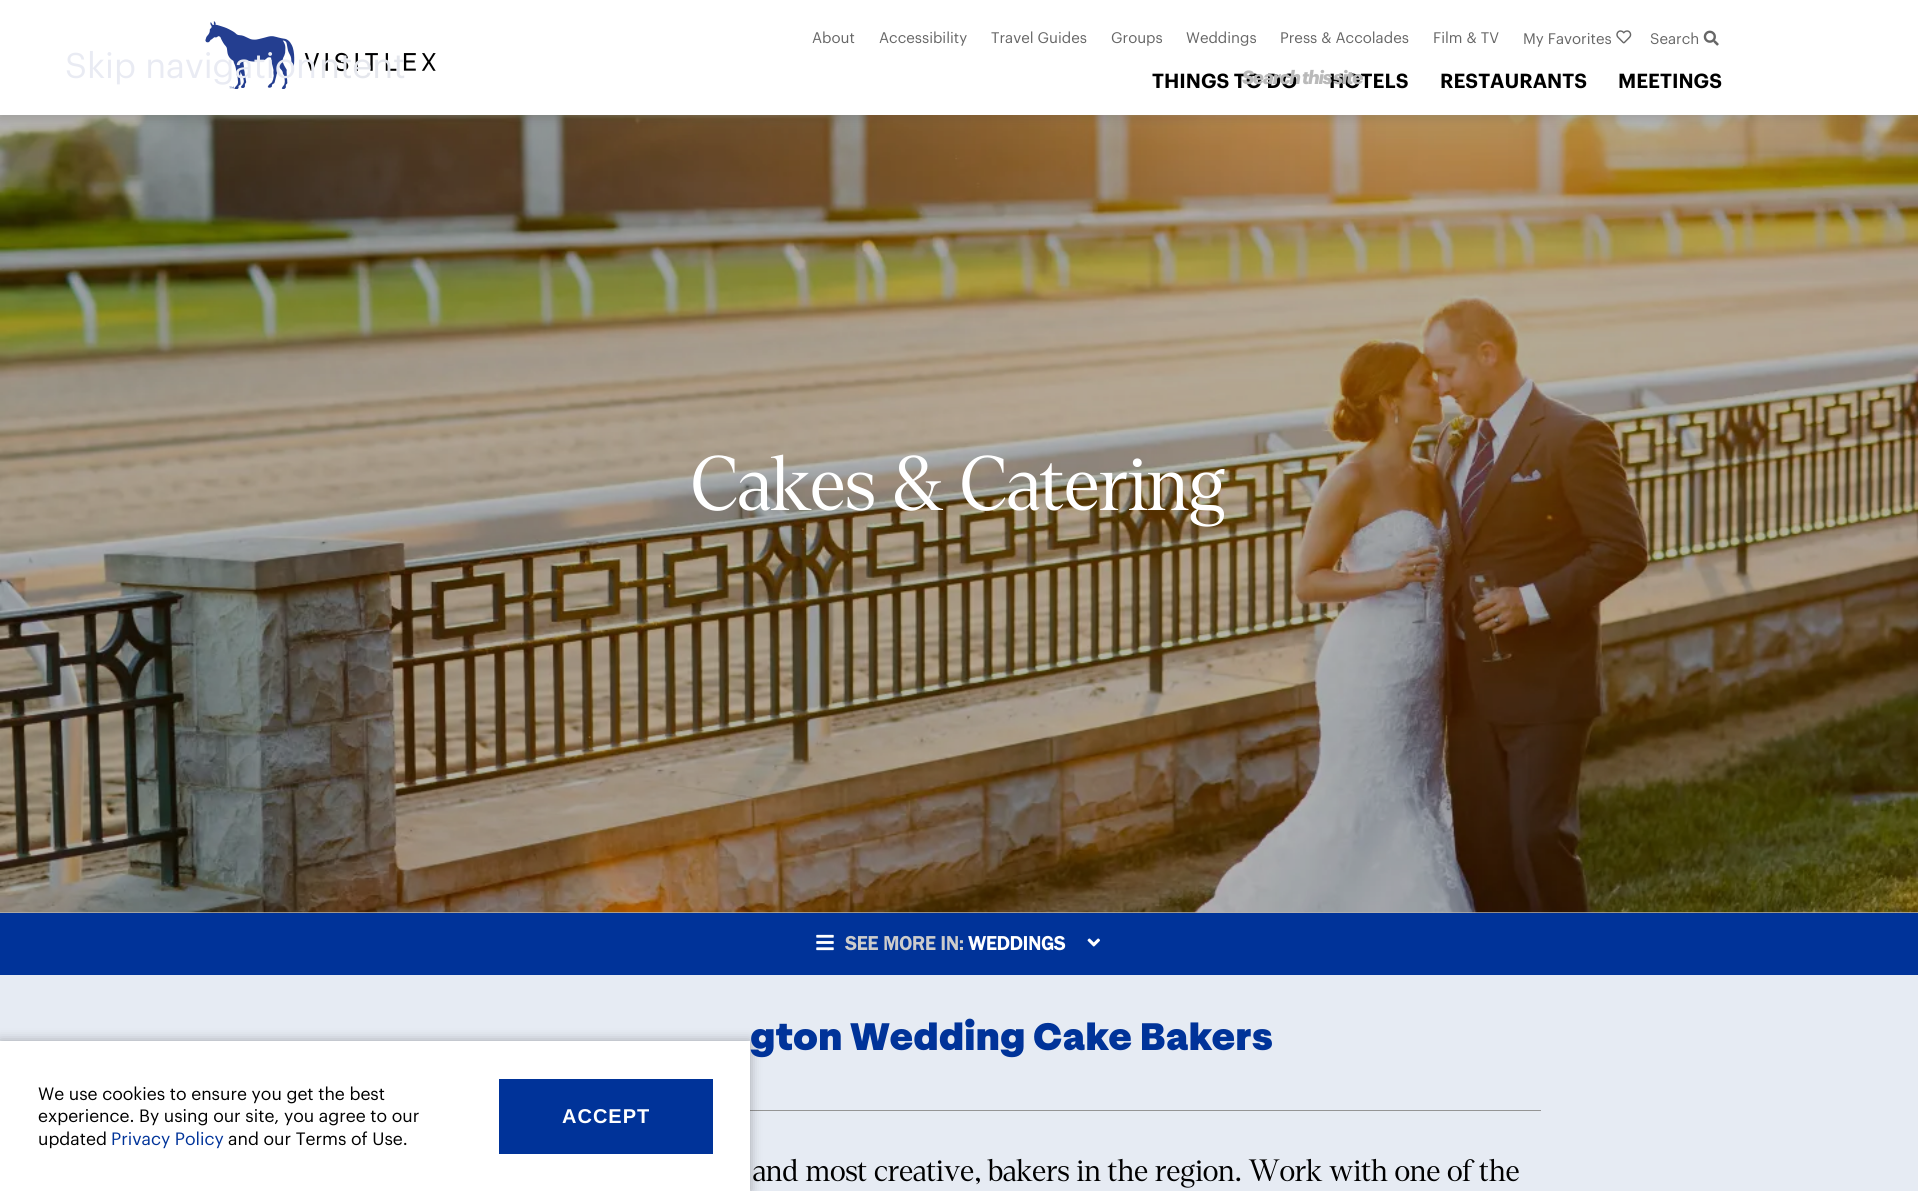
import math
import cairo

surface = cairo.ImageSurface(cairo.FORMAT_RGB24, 1918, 1191)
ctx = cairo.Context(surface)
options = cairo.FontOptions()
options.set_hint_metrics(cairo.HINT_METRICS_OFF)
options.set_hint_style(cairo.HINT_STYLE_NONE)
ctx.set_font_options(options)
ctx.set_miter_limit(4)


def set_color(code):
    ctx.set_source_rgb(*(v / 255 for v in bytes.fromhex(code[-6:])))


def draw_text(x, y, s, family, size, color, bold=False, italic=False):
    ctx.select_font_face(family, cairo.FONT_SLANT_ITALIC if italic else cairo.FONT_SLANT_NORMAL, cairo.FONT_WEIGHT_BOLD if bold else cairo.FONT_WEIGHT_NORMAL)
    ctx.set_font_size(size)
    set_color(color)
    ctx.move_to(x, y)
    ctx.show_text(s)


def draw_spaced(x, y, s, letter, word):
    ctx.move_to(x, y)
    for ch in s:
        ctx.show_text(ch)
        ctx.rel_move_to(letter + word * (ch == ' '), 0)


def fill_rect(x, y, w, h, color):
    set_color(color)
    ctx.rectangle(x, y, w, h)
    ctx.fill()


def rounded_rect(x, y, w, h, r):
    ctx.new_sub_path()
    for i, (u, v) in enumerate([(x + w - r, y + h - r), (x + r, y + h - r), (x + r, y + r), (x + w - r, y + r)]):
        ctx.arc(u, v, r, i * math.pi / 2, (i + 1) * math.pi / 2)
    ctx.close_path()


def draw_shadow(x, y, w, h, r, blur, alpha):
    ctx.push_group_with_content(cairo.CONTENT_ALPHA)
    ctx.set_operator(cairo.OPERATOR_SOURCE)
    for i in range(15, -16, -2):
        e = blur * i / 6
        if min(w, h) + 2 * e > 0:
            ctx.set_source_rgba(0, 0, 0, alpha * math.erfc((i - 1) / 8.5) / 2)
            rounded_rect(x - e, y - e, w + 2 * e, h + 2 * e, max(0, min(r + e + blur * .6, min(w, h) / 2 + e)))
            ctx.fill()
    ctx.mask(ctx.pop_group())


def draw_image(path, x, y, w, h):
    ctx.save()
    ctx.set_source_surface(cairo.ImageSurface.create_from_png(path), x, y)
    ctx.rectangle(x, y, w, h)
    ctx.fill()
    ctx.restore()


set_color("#b3b3b3")
ctx.paint()
draw_image("assets/img4.png", 0, 115, 1918, 798)
set_color("#464646")
draw_shadow(0, 4, 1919, 115, 0, 4.5, 0.16)
fill_rect(0, 0, 1918, 115, "#ffffff")
draw_image("assets/img1.png", 205, 21, 231, 68)
draw_text(812, 43, "About", "Graphik", 15, "#666666")
draw_text(879, 43, "Accessibility", "Graphik", 15, "#666666")
draw_text(991, 43, "Travel Guides", "Graphik", 15, "#666666")
draw_text(1111, 43, "Groups", "Graphik", 15, "#666666")
draw_text(1186, 43, "Weddings", "Graphik", 15, "#666666")
draw_text(1280, 43, "Press & Accolades", "Graphik", 15, "#666666")
draw_text(1433, 43, "Film & TV", "Graphik", 15, "#666666")
draw_text(1650, 44, "Search", "Graphik", 15, "#666666")
draw_image("assets/img2.png", 1703, 30, 16, 16)
draw_text(1152, 88, "THINGS TO DO", "Graphik SemiBold", 20, "#000000")
draw_text(1329, 88, "HOTELS", "Graphik SemiBold", 20, "#000000")
ctx.select_font_face("Graphik", cairo.FONT_SLANT_ITALIC, cairo.FONT_WEIGHT_BOLD)
ctx.set_font_size(18.75)
set_color("#bababa")
draw_spaced(1242, 84, "Search this site", -1.25, 0)
draw_text(1523, 44, "My Favorites", "Graphik", 15, "#666666")
draw_image("assets/img3.png", 1616, 30, 16, 14)
draw_text(1440, 88, "RESTAURANTS", "Graphik SemiBold", 20, "#000000")
draw_text(1618, 88, "MEETINGS", "Graphik SemiBold", 20, "#000000")
ctx.select_font_face("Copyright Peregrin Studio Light")
ctx.set_font_size(75)
set_color("#ffffff")
draw_spaced(692, 510, "Cakes & Catering", 1.5, 0)
fill_rect(0, 975, 1918, 216, "#e6ebf3")
fill_rect(750, 1110, 791, 1, "#959595")
set_color("#000000")
draw_shadow(0, 1041, 750, 150, 0, 6, 0.3)
fill_rect(0, 1041, 750, 150, "#ffffff")
draw_text(38, 1100, "We use cookies to ensure you get the best", "Graphik", 17.5, "#000000")
draw_text(38, 1122, "experience. By using our site, you agree to our", "Graphik", 17.5, "#000000")
draw_text(38, 1145, "updated", "Graphik", 17.5, "#000000")
draw_text(111, 1145, "Privacy Policy", "Graphik", 17.5, "#003399")
draw_text(228, 1145, "and our Terms of Use.", "Graphik", 17.5, "#000000")
fill_rect(499, 1079, 214, 75, "#003399")
ctx.select_font_face("Liberation Sans", cairo.FONT_SLANT_NORMAL, cairo.FONT_WEIGHT_BOLD)
ctx.set_font_size(20)
set_color("#ffffff")
draw_spaced(562, 1123, "ACCEPT", 1, 0)
fill_rect(0, 913, 1918, 62, "#003399")
draw_image("assets/img5.png", 816, 934, 18, 17)
draw_text(845, 950, "SEE MORE IN:", "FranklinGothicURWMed", 20, "#cccccc", bold=True)
draw_text(968, 950, "WEDDINGS", "FranklinGothicURWMed", 20, "#ffffff", bold=True)
draw_image("assets/img6.png", 1087, 938, 13, 9)
draw_text(750, 1050, "gton Wedding Cake Bakers", "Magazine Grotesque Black", 40, "#003399")
ctx.select_font_face("Copyright Peregrin Studio Light")
ctx.set_font_size(30)
set_color("#000000")
draw_spaced(753, 1181, "and most creative, bakers in the region. Work with one of the", 0.6, 0)
draw_text(65, 78, "Skip navigation", "Graphik", 35, "#e9ebf3")
draw_text(319, 78, "ntent", "Graphik", 35, "#e5e7ed")
surface.write_to_png("output.png")
